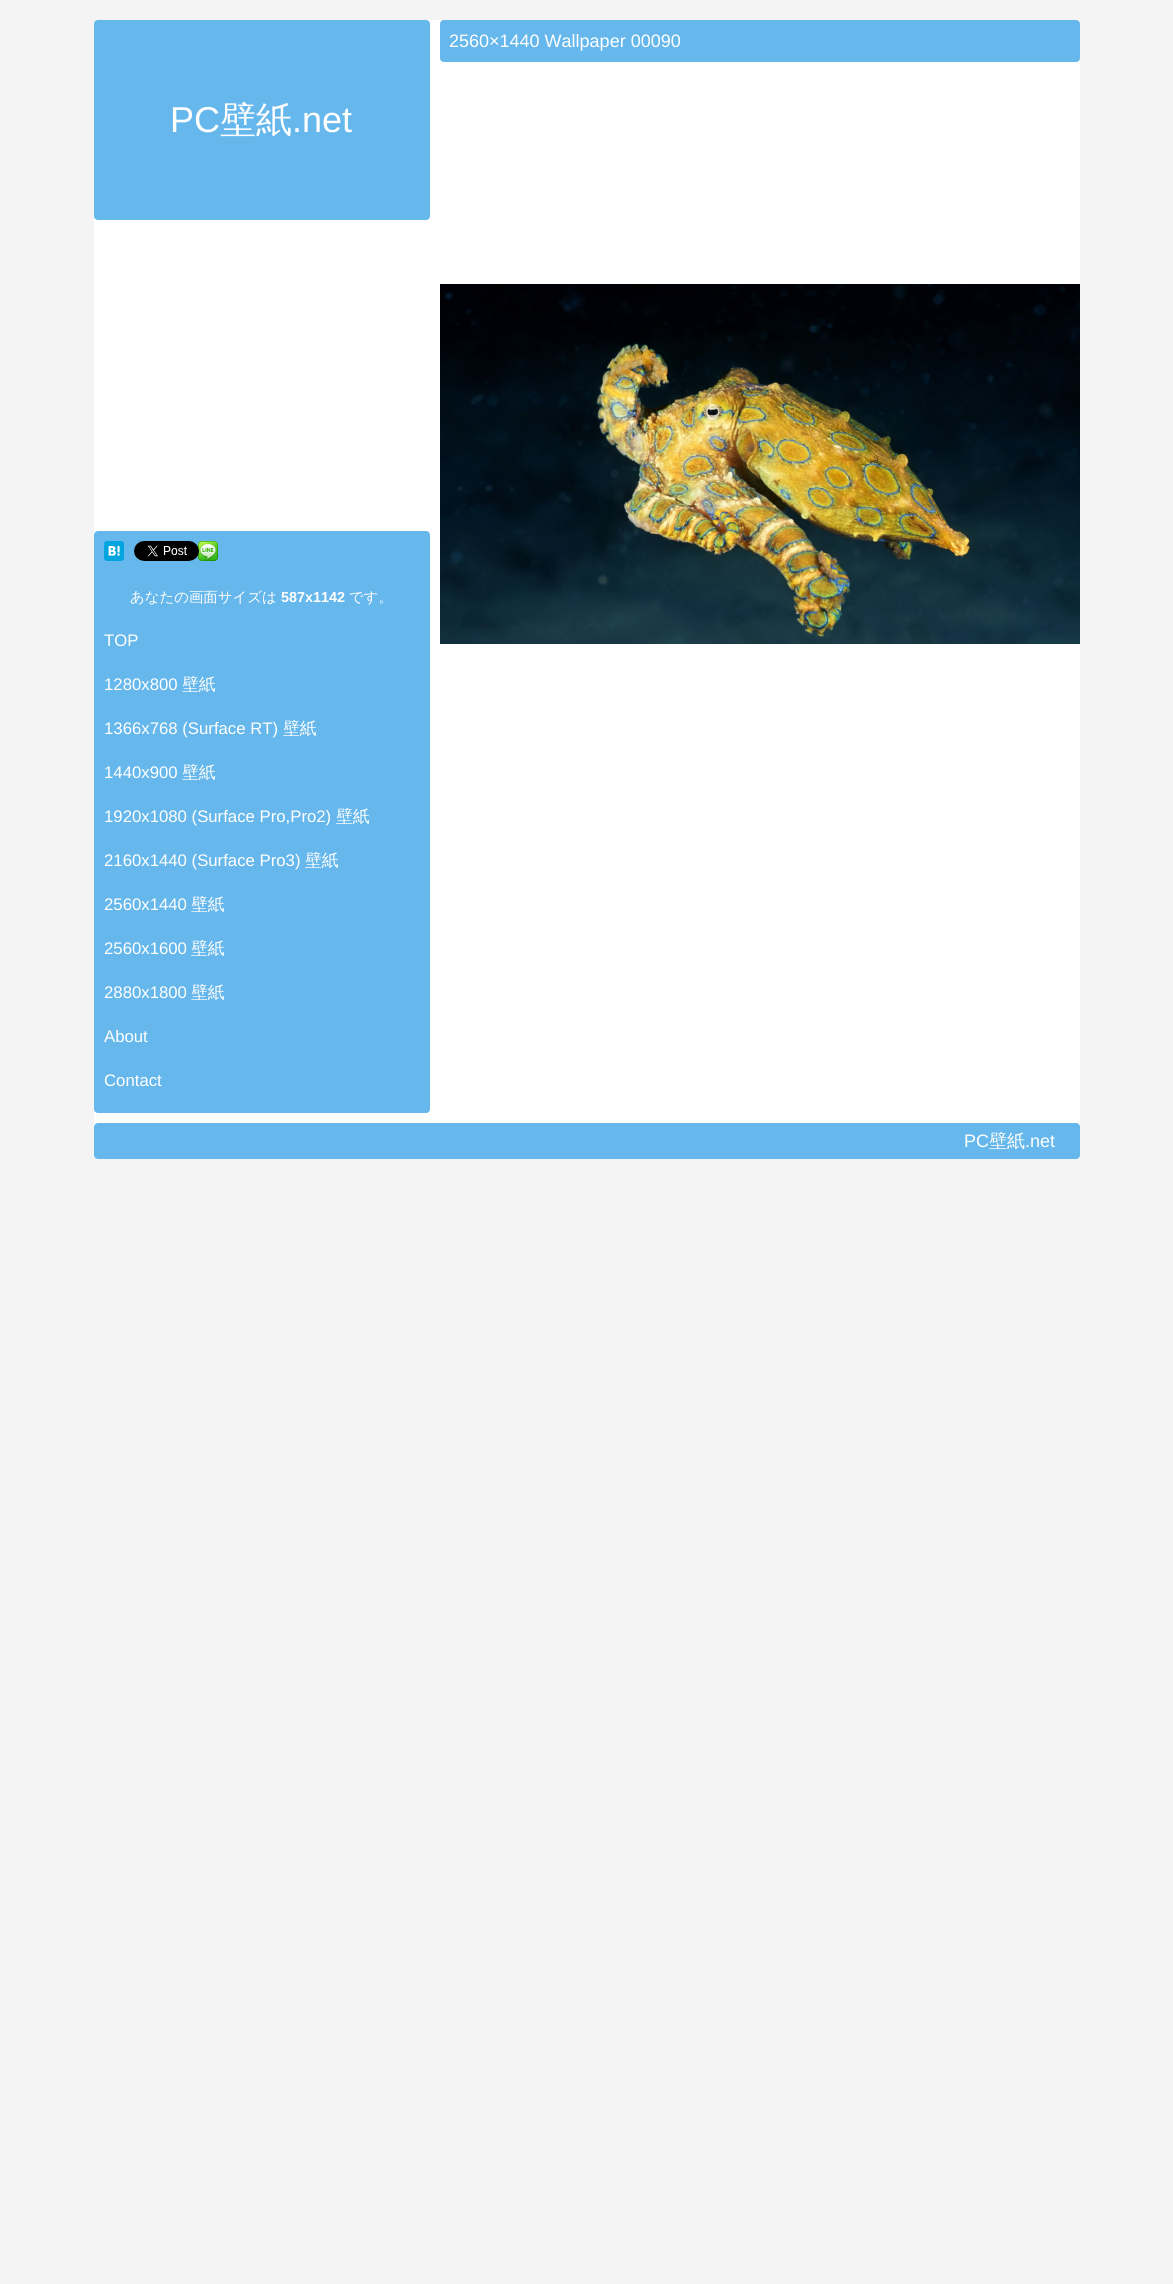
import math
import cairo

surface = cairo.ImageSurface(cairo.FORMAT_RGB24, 1173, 2284)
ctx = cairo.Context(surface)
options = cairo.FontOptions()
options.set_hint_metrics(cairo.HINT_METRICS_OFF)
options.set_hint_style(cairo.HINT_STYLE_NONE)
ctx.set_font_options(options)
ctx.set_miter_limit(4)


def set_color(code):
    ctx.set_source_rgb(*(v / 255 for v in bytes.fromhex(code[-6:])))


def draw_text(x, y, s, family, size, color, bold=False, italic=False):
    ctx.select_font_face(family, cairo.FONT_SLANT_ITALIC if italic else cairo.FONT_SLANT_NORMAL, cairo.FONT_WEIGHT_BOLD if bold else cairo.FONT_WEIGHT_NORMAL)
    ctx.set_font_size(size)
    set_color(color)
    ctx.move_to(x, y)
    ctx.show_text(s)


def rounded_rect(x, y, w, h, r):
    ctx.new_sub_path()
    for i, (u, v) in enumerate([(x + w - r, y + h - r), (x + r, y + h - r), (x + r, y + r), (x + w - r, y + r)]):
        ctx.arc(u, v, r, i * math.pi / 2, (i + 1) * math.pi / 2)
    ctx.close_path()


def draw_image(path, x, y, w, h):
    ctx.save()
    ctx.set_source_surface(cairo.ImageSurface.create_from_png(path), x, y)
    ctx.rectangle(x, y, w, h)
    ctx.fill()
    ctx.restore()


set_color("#f4f4f4")
ctx.paint()
set_color("#ffffff")
rounded_rect(94, 20, 986, 1139, 4)
ctx.fill()
set_color("#66b7ec")
rounded_rect(440, 20, 640, 42, 4)
ctx.fill()
draw_text(449, 47, "2560×1440 Wallpaper 00090", "Liberation Sans", 18, "#ffffff")
draw_image("assets/img1.png", 440, 284, 640, 360)
set_color("#66b7ec")
rounded_rect(94, 20, 336, 200, 4)
ctx.fill()
draw_text(170, 132, "PC", "Liberation Sans", 36, "#ffffff")
draw_text(220, 132, "壁紙", "WenQuanYi Zen Hei Medium", 36, "#ffffff")
draw_text(292, 132, ".net", "Liberation Sans", 36, "#ffffff")
set_color("#66b7ec")
rounded_rect(94, 531, 336, 582, 4)
ctx.fill()
draw_image("assets/img2.png", 104, 541, 20, 20)
draw_image("assets/img4.png", 198, 541, 20, 20)
draw_image("assets/img3.png", 134, 541, 65, 20)
draw_text(130, 602, "あなたの画面サイズは", "WenQuanYi Zen Hei Medium", 14.4, "#ffffff")
draw_text(281, 602, "587x1142", "Liberation Sans", 14.4, "#ffffff", bold=True)
draw_text(349, 602, "です。", "WenQuanYi Zen Hei Medium", 14.4, "#ffffff")
draw_text(104, 646, "TOP", "Liberation Sans", 16.75, "#ffffff")
draw_text(104, 690, "1280x800", "Liberation Sans", 16.75, "#ffffff")
draw_text(182, 690, "壁紙", "WenQuanYi Zen Hei Medium", 16.75, "#ffffff")
draw_text(104, 734, "1366x768 (Surface RT)", "Liberation Sans", 16.75, "#ffffff")
draw_text(283, 734, "壁紙", "WenQuanYi Zen Hei Medium", 16.75, "#ffffff")
draw_text(104, 778, "1440x900", "Liberation Sans", 16.75, "#ffffff")
draw_text(182, 778, "壁紙", "WenQuanYi Zen Hei Medium", 16.75, "#ffffff")
draw_text(104, 822, "1920x1080 (Surface Pro,Pro2)", "Liberation Sans", 16.75, "#ffffff")
draw_text(336, 822, "壁紙", "WenQuanYi Zen Hei Medium", 16.75, "#ffffff")
draw_text(104, 866, "2160x1440 (Surface Pro3)", "Liberation Sans", 16.75, "#ffffff")
draw_text(305, 866, "壁紙", "WenQuanYi Zen Hei Medium", 16.75, "#ffffff")
draw_text(104, 910, "2560x1440", "Liberation Sans", 16.75, "#ffffff")
draw_text(191, 910, "壁紙", "WenQuanYi Zen Hei Medium", 16.75, "#ffffff")
draw_text(104, 954, "2560x1600", "Liberation Sans", 16.75, "#ffffff")
draw_text(191, 954, "壁紙", "WenQuanYi Zen Hei Medium", 16.75, "#ffffff")
draw_text(104, 998, "2880x1800", "Liberation Sans", 16.75, "#ffffff")
draw_text(191, 998, "壁紙", "WenQuanYi Zen Hei Medium", 16.75, "#ffffff")
draw_text(104, 1042, "About", "Liberation Sans", 16.75, "#ffffff")
draw_text(104, 1086, "Contact", "Liberation Sans", 16.75, "#ffffff")
set_color("#66b7ec")
rounded_rect(94, 1123, 986, 36, 4)
ctx.fill()
draw_text(964, 1147, "PC", "Liberation Sans", 18, "#ffffff")
draw_text(989, 1147, "壁紙", "WenQuanYi Zen Hei Medium", 18, "#ffffff")
draw_text(1025, 1147, ".net", "Liberation Sans", 18, "#ffffff")
surface.write_to_png("output.png")
